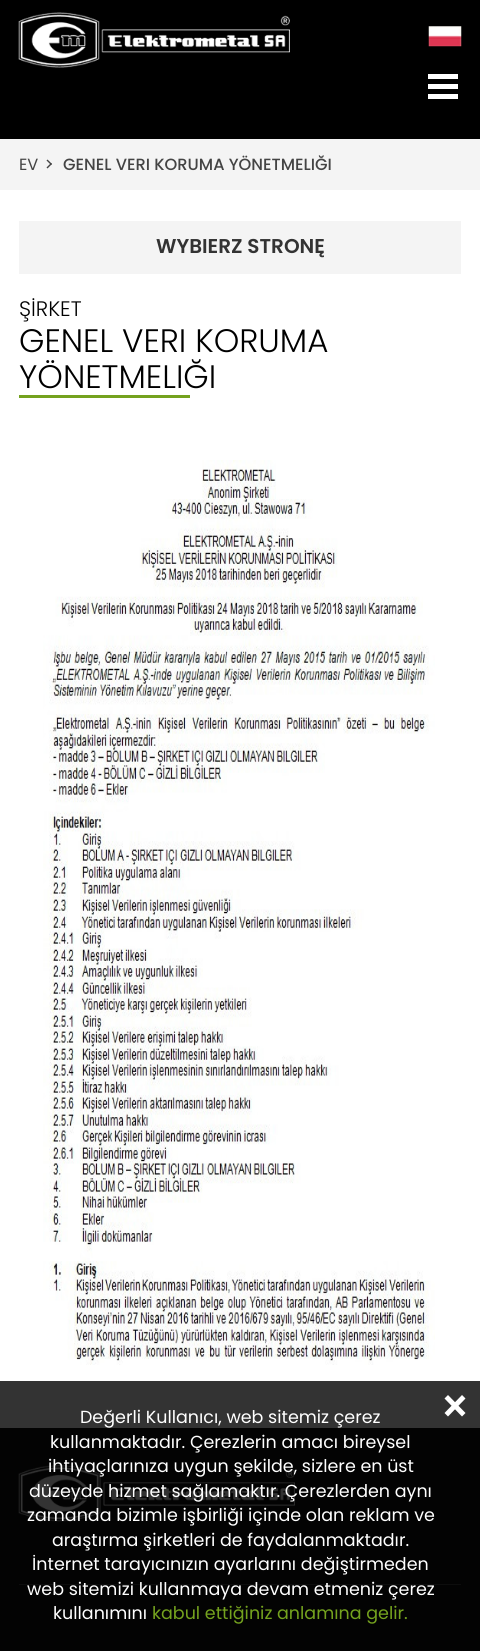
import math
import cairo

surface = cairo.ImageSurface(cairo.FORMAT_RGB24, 480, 1651)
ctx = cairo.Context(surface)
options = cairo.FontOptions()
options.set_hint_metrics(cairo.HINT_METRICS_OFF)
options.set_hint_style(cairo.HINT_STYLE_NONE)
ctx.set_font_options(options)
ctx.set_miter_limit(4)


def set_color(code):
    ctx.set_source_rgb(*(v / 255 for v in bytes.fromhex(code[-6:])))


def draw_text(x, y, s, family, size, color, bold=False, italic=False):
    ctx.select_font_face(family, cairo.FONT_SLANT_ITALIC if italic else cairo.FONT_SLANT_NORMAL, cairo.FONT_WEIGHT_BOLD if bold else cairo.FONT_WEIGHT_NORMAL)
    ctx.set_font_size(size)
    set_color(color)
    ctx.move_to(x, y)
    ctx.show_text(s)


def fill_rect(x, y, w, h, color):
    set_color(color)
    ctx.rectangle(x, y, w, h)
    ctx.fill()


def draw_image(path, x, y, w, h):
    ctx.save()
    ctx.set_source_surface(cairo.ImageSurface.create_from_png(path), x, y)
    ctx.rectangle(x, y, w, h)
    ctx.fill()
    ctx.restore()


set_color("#030303")
ctx.paint()
fill_rect(0, 0, 480, 139, "#000000")
draw_image("assets/img1.png", 18, 12, 272, 56)
draw_image("assets/img2.png", 428, 26, 34, 21)
fill_rect(428, 74, 30, 5, "#ffffff")
fill_rect(428, 84, 30, 5, "#ffffff")
fill_rect(428, 94, 30, 5, "#ffffff")
fill_rect(0, 139, 480, 51, "#f4f4f4")
draw_text(19, 170, "EV", "Poppins", 16.25, "#444444")
ctx.new_path()
ctx.move_to(47.5, 159.5)
ctx.line_to(52, 164)
ctx.line_to(51, 165)
ctx.line_to(46.5, 160.5)
ctx.close_path()
ctx.fill()
ctx.new_path()
ctx.move_to(51, 163)
ctx.line_to(52, 164)
ctx.line_to(47.5, 168.5)
ctx.line_to(46.5, 167.5)
ctx.close_path()
ctx.fill()
draw_text(63, 170, "GENEL VERI KORUMA YÖNETMELIĞI", "Poppins Medium", 16.25, "#444444")
fill_rect(0, 190, 480, 1191, "#ffffff")
fill_rect(0, 1381, 480, 47, "#333333")
fill_rect(19, 221, 442, 53, "#f4f4f4")
draw_text(156, 253, "WYBIERZ STRONĘ", "Poppins SemiBold", 20, "#333333")
draw_text(19, 316, "ŞİRKET", "Poppins Light", 21, "#000000")
draw_text(19, 352, "GENEL VERI KORUMA", "Poppins Light", 32.5, "#000000")
draw_text(19, 388, "YÖNETMELIĞI", "Poppins Light", 32.5, "#000000")
fill_rect(19, 395, 171, 3, "#74a21e")
draw_image("assets/img3.png", 43, 460, 392, 905)
set_color("#ffffff")
ctx.new_path()
ctx.move_to(444.5, 1413)
ctx.line_to(462, 1395)
ctx.line_to(465.5, 1398.5)
ctx.line_to(448, 1416.5)
ctx.close_path()
ctx.fill()
ctx.new_path()
ctx.move_to(448, 1395)
ctx.line_to(465.5, 1413)
ctx.line_to(462, 1416.5)
ctx.line_to(444.5, 1398.5)
ctx.close_path()
ctx.fill()
draw_text(80, 1423, "Değerli Kullanıcı, web sitemiz çerez", "Poppins", 17.5, "#ffffff")
draw_text(50, 1448, "kullanmaktadır. Çerezlerin amacı bireysel", "Poppins", 17.5, "#ffffff")
draw_image("assets/img4.png", 18, 1465, 277, 57)
draw_text(48, 1472, "ihtiyaçlarınıza uygun şekilde, sizlere en üst", "Poppins", 17.5, "#ffffff")
draw_text(29, 1497, "düzeyde hizmet sağlamaktır. Çerezlerden aynı", "Poppins", 17.5, "#ffffff")
draw_text(27, 1521, "zamanda bizimle işbirliği içinde olan reklam ve", "Poppins", 17.5, "#ffffff")
draw_text(52, 1546, "araştırma şirketleri de faydalanmaktadır.", "Poppins", 17.5, "#ffffff")
draw_text(32, 1570, "İnternet tarayıcınızın ayarlarını değiştirmeden", "Poppins", 17.5, "#ffffff")
fill_rect(19, 1584, 442, 1, "#0d0d0d")
draw_text(27, 1595, "web sitemizi kullanmaya devam etmeniz çerez", "Poppins", 17.5, "#ffffff")
draw_text(53, 1619, "kullanımını", "Poppins", 17.5, "#ffffff")
draw_text(152, 1619, "kabul ettiğiniz anlamına gelir.", "Poppins", 17.5, "#74a21e")
surface.write_to_png("output.png")
